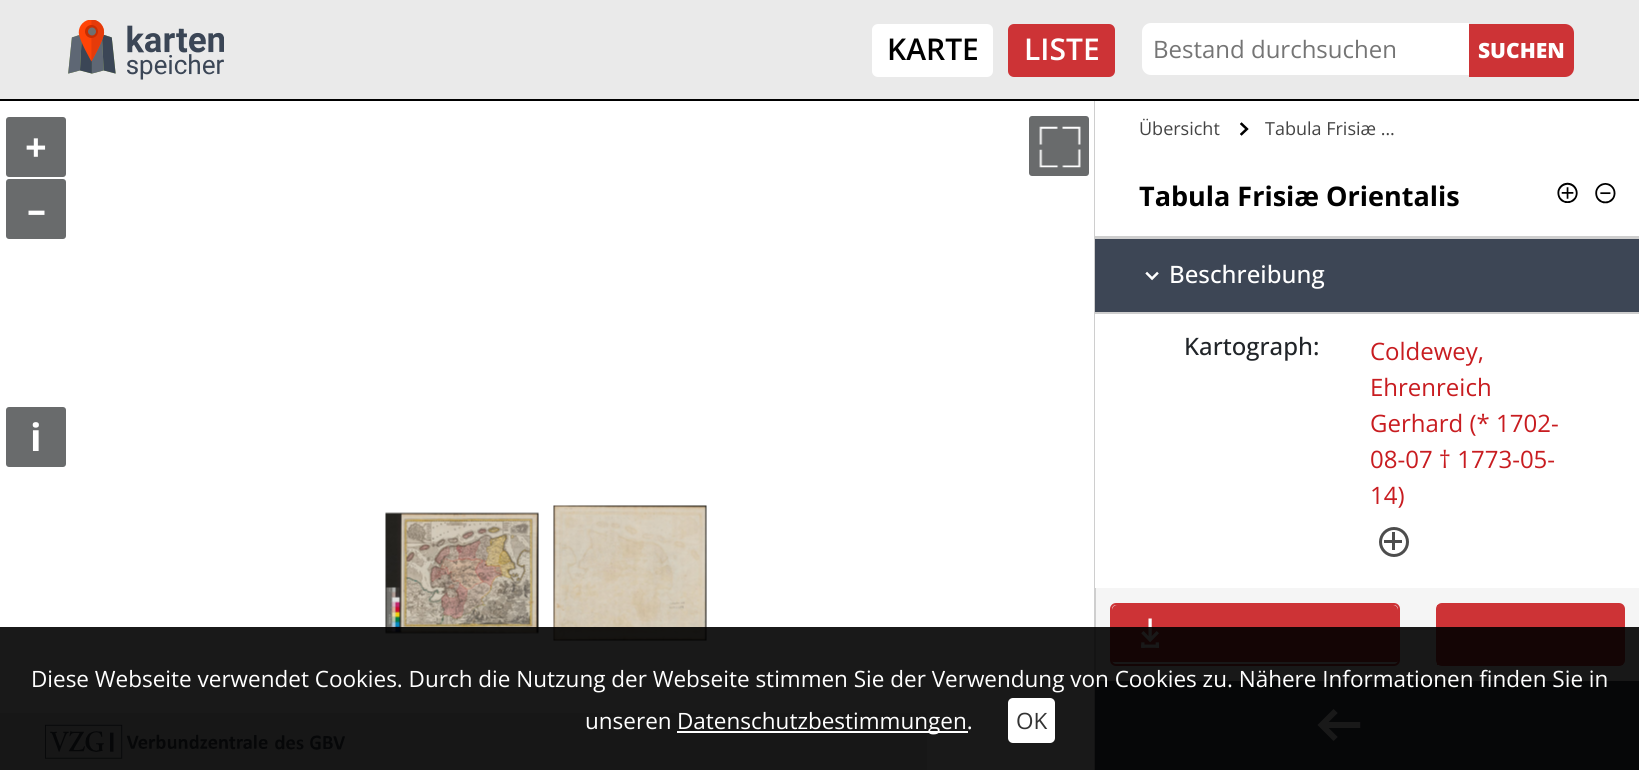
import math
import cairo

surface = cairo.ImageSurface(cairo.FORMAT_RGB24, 1639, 770)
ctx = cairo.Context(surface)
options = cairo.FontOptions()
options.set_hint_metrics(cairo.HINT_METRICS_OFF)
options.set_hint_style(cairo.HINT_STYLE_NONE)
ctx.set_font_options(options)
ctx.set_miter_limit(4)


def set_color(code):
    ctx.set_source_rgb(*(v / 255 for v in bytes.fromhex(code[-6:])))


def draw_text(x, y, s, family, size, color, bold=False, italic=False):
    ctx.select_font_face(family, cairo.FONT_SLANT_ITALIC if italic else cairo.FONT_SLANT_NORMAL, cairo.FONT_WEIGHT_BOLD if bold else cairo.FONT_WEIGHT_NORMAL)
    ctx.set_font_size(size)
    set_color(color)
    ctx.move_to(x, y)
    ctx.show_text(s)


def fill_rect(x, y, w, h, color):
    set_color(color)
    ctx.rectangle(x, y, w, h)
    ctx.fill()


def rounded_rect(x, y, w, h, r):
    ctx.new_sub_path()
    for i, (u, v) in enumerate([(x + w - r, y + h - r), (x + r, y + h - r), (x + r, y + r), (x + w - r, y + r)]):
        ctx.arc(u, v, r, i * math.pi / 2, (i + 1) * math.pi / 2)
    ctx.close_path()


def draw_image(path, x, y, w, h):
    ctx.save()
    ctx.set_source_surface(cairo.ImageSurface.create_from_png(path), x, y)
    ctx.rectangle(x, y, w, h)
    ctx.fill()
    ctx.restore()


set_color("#ffffff")
ctx.paint()
fill_rect(0, 0, 1639, 99, "#eaeaea")
fill_rect(0, 99, 1639, 2, "#000000")
draw_image("assets/img1.png", 68, 20, 156, 60)
set_color("#ffffff")
rounded_rect(872, 24, 121, 53, 6)
ctx.fill()
draw_text(887, 60, "KARTE", "Open Sans SemiBold", 30, "#000000")
set_color("#cd3336")
rounded_rect(1008, 24, 107, 53, 6)
ctx.fill()
draw_text(1024, 60, "LISTE", "Open Sans SemiBold", 30, "#ffffff")
ctx.new_path()
ctx.move_to(1151, 23)
ctx.line_to(1469, 23)
ctx.line_to(1469, 75)
ctx.line_to(1151, 75)
ctx.curve_to(1146, 75, 1142, 71, 1142, 66)
ctx.line_to(1142, 32)
ctx.curve_to(1142, 27, 1146, 23, 1151, 23)
ctx.close_path()
ctx.fill()
draw_text(1153, 58, "Bestand durchsuchen", "Open Sans", 24, "#757575")
set_color("#cd3336")
ctx.new_path()
ctx.move_to(1469, 24)
ctx.line_to(1565, 24)
ctx.curve_to(1570, 24, 1574, 28, 1574, 33)
ctx.line_to(1574, 68)
ctx.curve_to(1574, 73, 1570, 77, 1565, 77)
ctx.line_to(1469, 77)
ctx.close_path()
ctx.fill()
draw_text(1478, 58, "SUCHEN", "Open Sans ExtraBold", 21, "#ffffff")
set_color("#696b6c")
rounded_rect(6, 117, 60, 60, 3)
ctx.fill()
draw_text(25, 161, "+", "Open Sans", 38, "#ffffff", bold=True)
set_color("#696b6c")
rounded_rect(6, 179, 60, 60, 3)
ctx.fill()
draw_text(27, 223, "–", "Open Sans", 38, "#ffffff", bold=True)
set_color("#696b6c")
rounded_rect(6, 407, 60, 60, 3)
ctx.fill()
draw_text(30, 451, "i", "Open Sans", 38, "#ffffff", bold=True)
set_color("#696b6c")
rounded_rect(1029, 116, 60, 60, 3)
ctx.fill()
draw_image("assets/img2.png", 1039, 126, 42, 42)
draw_image("assets/img3.png", 385, 512, 154, 122)
draw_image("assets/img4.png", 553, 505, 154, 136)
fill_rect(1096, 588, 543, 93, "#f5f5f5")
fill_rect(1094, 101, 2, 669, "#cecece")
fill_rect(1095, 101, 1, 487, "#ffffff")
draw_text(1139, 135, "Übersicht", "Open Sans", 18, "#444444")
draw_image("assets/img5.png", 1240, 122, 9, 14)
draw_text(1265, 135, "Tabula Frisiæ …", "Open Sans", 18, "#444444")
fill_rect(1095, 236, 544, 3, "#cecece")
draw_text(1139, 206, "Tabula Frisiæ Orientalis", "Open Sans", 27, "#000000", bold=True)
draw_image("assets/img6.png", 1557, 182, 21, 21)
draw_image("assets/img7.png", 1595, 183, 21, 21)
fill_rect(1095, 239, 544, 73, "#3d4655")
fill_rect(1095, 312, 544, 2, "#cecece")
draw_image("assets/img8.png", 1145, 271, 14, 10)
draw_text(1169, 283, "Beschreibung", "Open Sans Medium", 24, "#ffffff")
draw_text(1184, 355, "Kartograph:", "Open Sans Medium", 24, "#212529")
draw_text(1370, 360, "Coldewey,", "Open Sans", 24, "#c81c20")
draw_text(1370, 396, "Ehrenreich", "Open Sans", 24, "#c81c20")
draw_text(1370, 432, "Gerhard (* 1702-", "Open Sans", 24, "#c81c20")
draw_text(1370, 468, "08-07 † 1773-05-", "Open Sans", 24, "#c81c20")
draw_text(1370, 504, "14)", "Open Sans", 24, "#c81c20")
ctx.new_path()
ctx.arc(1394, 542, 13.5, 0, 2 * math.pi)
set_color("#4d4d4d")
ctx.set_line_width(3)
ctx.stroke()
fill_rect(1392, 532, 3, 18, "#4d4d4d")
fill_rect(1384, 540, 18, 3, "#4d4d4d")
rounded_rect(1111, 604, 288, 61, 5)
set_color("#cd3336")
ctx.set_line_width(2)
ctx.stroke()
ctx.save()
rounded_rect(1112, 605, 286, 60, 5)
ctx.clip()
ctx.new_path()
ctx.move_to(1117, 605)
ctx.line_to(1393, 605)
ctx.curve_to(1396, 605, 1398, 607, 1398, 610)
ctx.line_to(1398, 662)
ctx.line_to(1112, 662)
ctx.line_to(1112, 610)
ctx.curve_to(1112, 607, 1114, 605, 1117, 605)
ctx.close_path()
ctx.fill()
ctx.restore()
draw_image("assets/img9.png", 1141, 618, 18, 30)
rounded_rect(1437, 604, 187, 61, 5)
ctx.stroke()
fill_rect(1437, 605, 186, 60, "#cd3336")
fill_rect(1095, 681, 544, 89, "#3d4655")
draw_image("assets/img10.png", 1317, 709, 44, 32)
fill_rect(0, 713, 927, 57, "#eaeaea")
draw_image("assets/img11.png", 45, 724, 300, 35)
ctx.set_source_rgba(0, 0, 0, 0.9)
ctx.rectangle(0, 627, 1639, 143)
ctx.fill()
draw_text(31, 687, "Diese Webseite verwendet Cookies. Durch die Nutzung der Webseite stimmen Sie der Verwendung von Cookies zu. Nähere Informationen finden Sie in", "Open Sans", 22.5, "#ffffff")
draw_text(585, 729, "unseren", "Open Sans", 22.5, "#ffffff")
fill_rect(677, 731, 291, 2, "#ffffff")
draw_text(677, 729, "Datenschutzbestimmungen.", "Open Sans", 22.5, "#ffffff")
rounded_rect(1008, 698, 47, 45, 5)
ctx.fill()
draw_text(1016, 729, "OK", "Open Sans", 22.5, "#333333")
surface.write_to_png("output.png")
